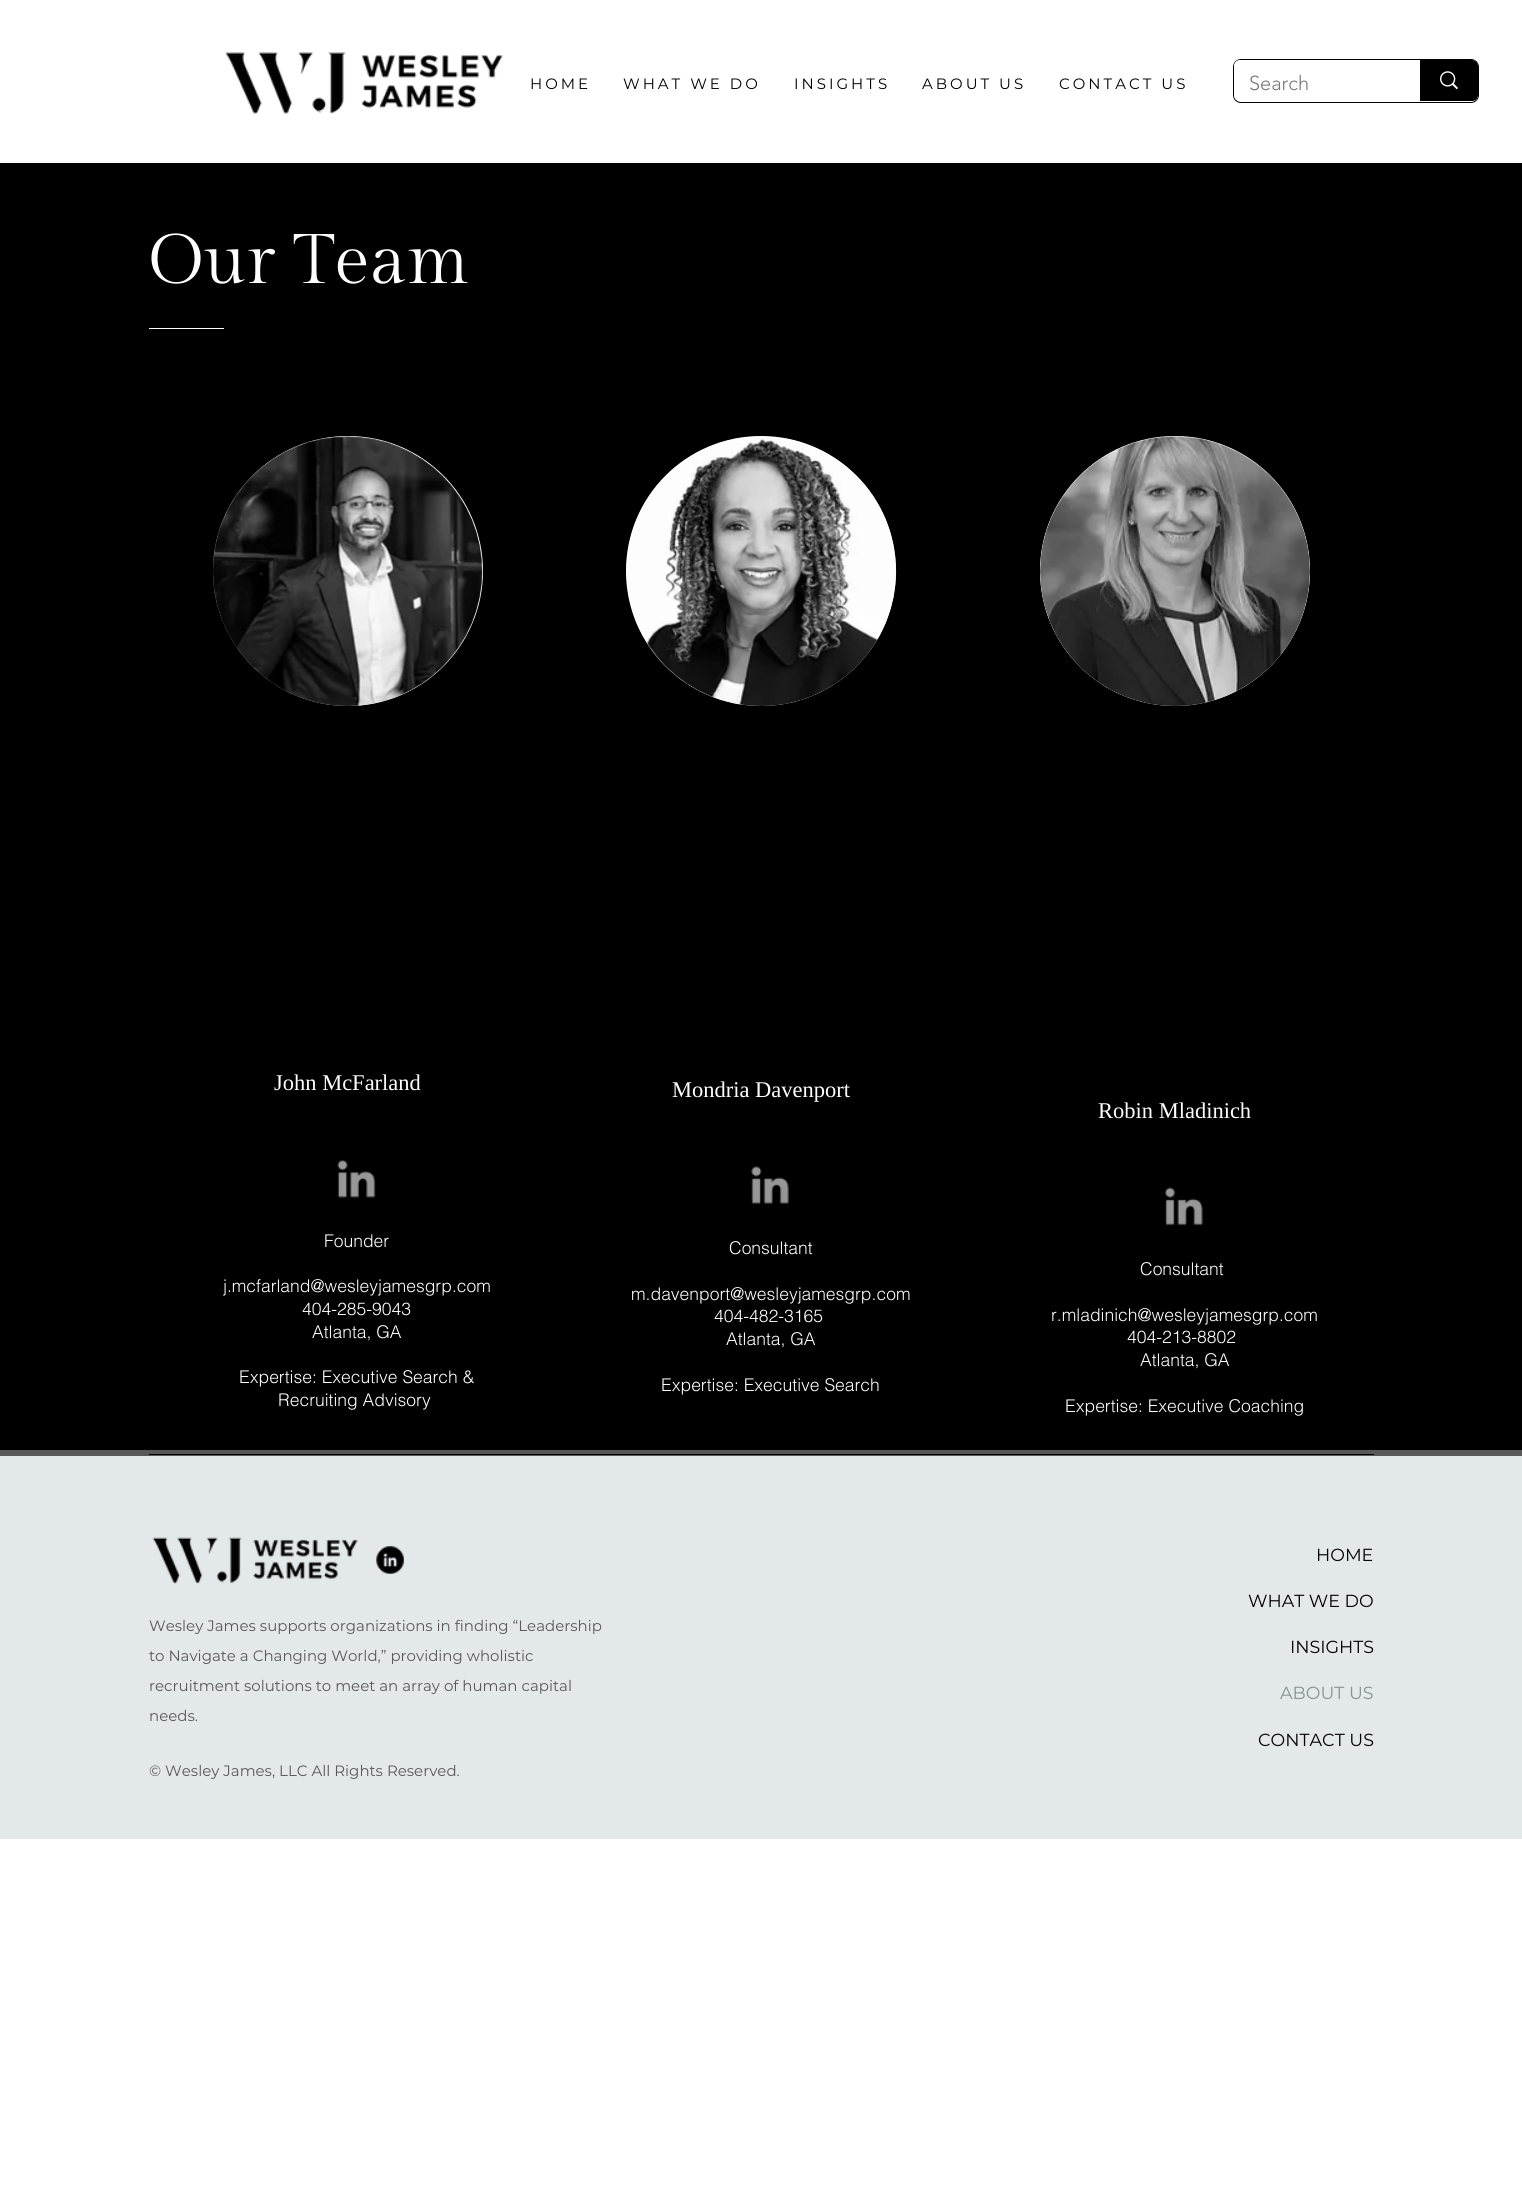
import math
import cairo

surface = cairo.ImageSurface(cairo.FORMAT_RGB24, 1522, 2209)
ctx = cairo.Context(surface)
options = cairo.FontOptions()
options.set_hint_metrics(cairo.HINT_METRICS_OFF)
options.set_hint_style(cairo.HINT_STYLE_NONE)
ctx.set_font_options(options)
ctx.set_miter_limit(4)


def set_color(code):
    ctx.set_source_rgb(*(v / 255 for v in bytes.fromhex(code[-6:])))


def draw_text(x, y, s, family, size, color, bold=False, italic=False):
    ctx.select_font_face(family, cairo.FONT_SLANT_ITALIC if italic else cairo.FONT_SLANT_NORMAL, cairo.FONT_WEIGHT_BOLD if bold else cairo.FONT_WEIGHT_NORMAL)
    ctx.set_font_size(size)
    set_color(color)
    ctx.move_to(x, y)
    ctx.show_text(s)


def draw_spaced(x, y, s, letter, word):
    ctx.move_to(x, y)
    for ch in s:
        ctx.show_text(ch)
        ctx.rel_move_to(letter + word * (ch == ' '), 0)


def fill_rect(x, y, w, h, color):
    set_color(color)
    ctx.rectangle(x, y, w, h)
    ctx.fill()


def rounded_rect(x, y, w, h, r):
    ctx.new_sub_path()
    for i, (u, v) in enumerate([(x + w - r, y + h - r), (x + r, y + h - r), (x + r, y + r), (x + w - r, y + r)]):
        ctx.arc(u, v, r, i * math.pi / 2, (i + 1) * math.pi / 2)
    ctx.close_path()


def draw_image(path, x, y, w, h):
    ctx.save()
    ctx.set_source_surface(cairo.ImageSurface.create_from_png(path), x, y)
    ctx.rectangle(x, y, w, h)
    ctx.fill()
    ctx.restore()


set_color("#ffffff")
ctx.paint()
draw_image("assets/img1.png", 225, 52, 278, 62)
ctx.select_font_face("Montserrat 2")
ctx.set_font_size(15)
set_color("#000000")
draw_spaced(530, 89, "HOME", 3, 0)
draw_spaced(623, 89, "WHAT WE DO", 3, 0)
draw_spaced(794, 89, "INSIGHTS", 3, 0)
draw_spaced(922, 89, "ABOUT US", 3, 0)
draw_spaced(1059, 89, "CONTACT US", 3, 0)
rounded_rect(1233.5, 59.5, 245, 43, 7.5)
ctx.set_line_width(1)
ctx.stroke()
set_color("#ffffff")
rounded_rect(1234, 60, 244, 41, 6)
ctx.fill()
draw_text(1249, 90, "Search", "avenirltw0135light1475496 Light", 20, "#787878")
set_color("#000000")
ctx.new_path()
ctx.move_to(1420, 60)
ctx.line_to(1472, 60)
ctx.curve_to(1475.5, 60, 1478, 62.5, 1478, 66)
ctx.line_to(1478, 95)
ctx.curve_to(1478, 98.5, 1475.5, 101, 1472, 101)
ctx.line_to(1420, 101)
ctx.close_path()
ctx.fill()
draw_image("assets/img2.png", 1440, 71, 18, 19)
fill_rect(0, 163, 1522, 1287, "#000000")
draw_text(149, 283, "Our Team", "Gilda Display", 70, "#ffffff")
fill_rect(149, 328, 75, 1, "#ffffff")
ctx.new_path()
ctx.arc(348, 571, 135, 0, 2 * math.pi)
ctx.fill()
draw_image("assets/img3.png", 213, 436, 270, 270)
draw_text(274, 1090, "John McFarland", "Liberation Serif", 22.5, "#ffffff")
draw_image("assets/img4.png", 337, 1160, 39, 38)
draw_text(324, 1247, "Founder", "helvetica Light", 17.5, "#ffffff")
draw_text(223, 1292, "j.mcfarland@wesleyjamesgrp.com", "helvetica Light", 17.5, "#ffffff")
draw_text(302, 1315, "404-285-9043", "helvetica Light", 17.5, "#ffffff")
draw_text(312, 1338, "Atlanta, GA", "helvetica Light", 17.5, "#ffffff")
draw_text(239, 1383, "Expertise: Executive Search &", "helvetica Light", 17.5, "#ffffff")
draw_text(278, 1406, "Recruiting Advisory", "helvetica Light", 17.5, "#ffffff")
ctx.new_path()
ctx.arc(761, 571, 135, 0, 2 * math.pi)
ctx.fill()
draw_image("assets/img5.png", 626, 436, 271, 270)
draw_text(672, 1097, "Mondria Davenport", "Liberation Serif", 22.5, "#ffffff")
draw_image("assets/img6.png", 751, 1166, 38, 38)
draw_text(729, 1254, "Consultant", "helvetica Light", 17.5, "#ffffff")
draw_text(631, 1300, "m.davenport@wesleyjamesgrp.com", "helvetica Light", 17.5, "#ffffff")
draw_text(714, 1322, "404-482-3165", "helvetica Light", 17.5, "#ffffff")
draw_text(726, 1345, "Atlanta, GA", "helvetica Light", 17.5, "#ffffff")
draw_text(661, 1391, "Expertise: Executive Search", "helvetica Light", 17.5, "#ffffff")
ctx.new_path()
ctx.arc(1175, 571, 135, 0, 2 * math.pi)
ctx.fill()
draw_image("assets/img7.png", 1040, 436, 270, 270)
draw_text(1098, 1118, "Robin Mladinich", "Liberation Serif", 22.5, "#ffffff")
draw_image("assets/img8.png", 1165, 1187, 38, 39)
draw_text(1140, 1275, "Consultant", "helvetica Light", 17.5, "#ffffff")
draw_text(1051, 1321, "r.mladinich@wesleyjamesgrp.com", "helvetica Light", 17.5, "#ffffff")
draw_text(1127, 1343, "404-213-8802", "helvetica Light", 17.5, "#ffffff")
draw_text(1140, 1366, "Atlanta, GA", "helvetica Light", 17.5, "#ffffff")
draw_text(1065, 1412, "Expertise: Executive Coaching", "helvetica Light", 17.5, "#ffffff")
fill_rect(0, 1456, 1522, 383, "#e3e8eb")
fill_rect(0, 1450, 1522, 6, "#595959")
fill_rect(149, 1454, 1225, 1, "#000000")
draw_image("assets/img9.png", 152, 1537, 206, 47)
draw_image("assets/img10.png", 376, 1546, 28, 28)
draw_text(1316, 1561, "HOME", "Montserrat", 17.5, "#000000")
draw_text(1248, 1607, "WHAT WE DO", "Montserrat", 17.5, "#000000")
draw_text(1290, 1653, "INSIGHTS", "Montserrat", 17.5, "#000000")
draw_text(1280, 1699, "ABOUT US", "Montserrat", 17.5, "#889293")
draw_text(1258, 1746, "CONTACT US", "Montserrat", 17.5, "#000000")
draw_text(149, 1631, "Wesley James supports organizations in finding “Leadership", "Montserrat", 15, "#595959")
draw_text(149, 1661, "to Navigate a Changing World,” providing wholistic", "Montserrat", 15, "#595959")
draw_text(149, 1691, "recruitment solutions to meet an array of human capital", "Montserrat", 15, "#595959")
draw_text(149, 1721, "needs.", "Montserrat", 15, "#595959")
draw_text(149, 1776, "© Wesley James, LLC All Rights Reserved.", "Montserrat", 15, "#595959")
surface.write_to_png("output.png")
